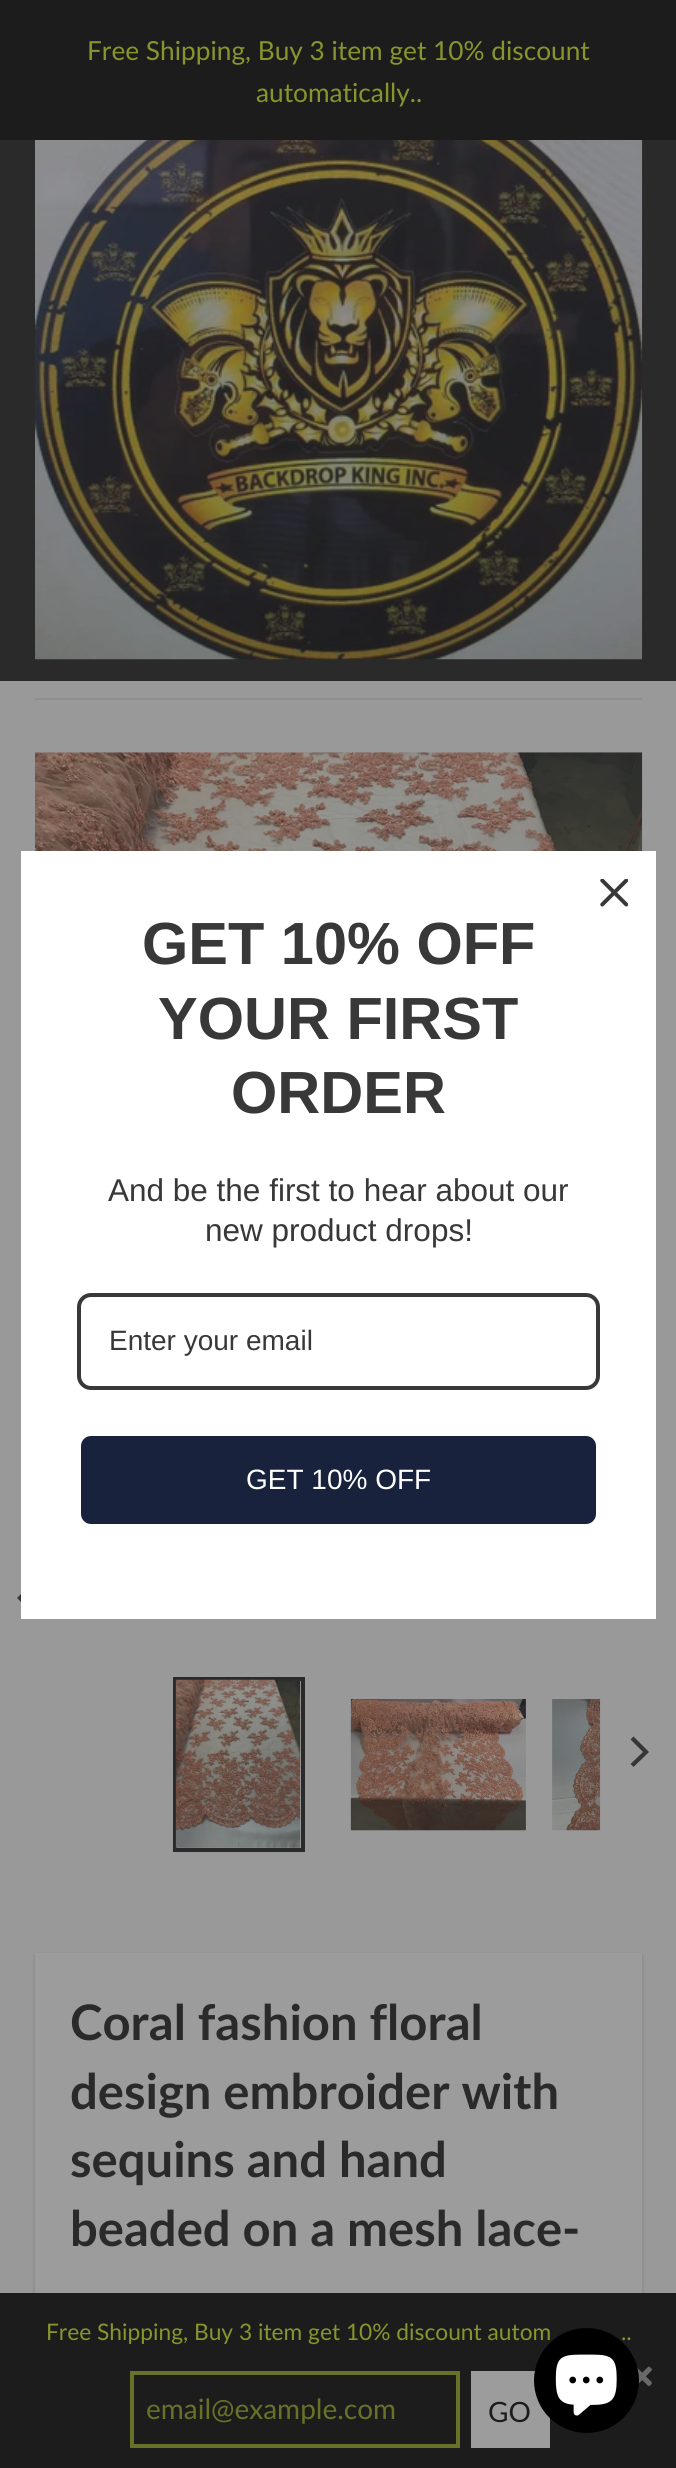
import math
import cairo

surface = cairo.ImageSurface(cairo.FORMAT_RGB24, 676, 2468)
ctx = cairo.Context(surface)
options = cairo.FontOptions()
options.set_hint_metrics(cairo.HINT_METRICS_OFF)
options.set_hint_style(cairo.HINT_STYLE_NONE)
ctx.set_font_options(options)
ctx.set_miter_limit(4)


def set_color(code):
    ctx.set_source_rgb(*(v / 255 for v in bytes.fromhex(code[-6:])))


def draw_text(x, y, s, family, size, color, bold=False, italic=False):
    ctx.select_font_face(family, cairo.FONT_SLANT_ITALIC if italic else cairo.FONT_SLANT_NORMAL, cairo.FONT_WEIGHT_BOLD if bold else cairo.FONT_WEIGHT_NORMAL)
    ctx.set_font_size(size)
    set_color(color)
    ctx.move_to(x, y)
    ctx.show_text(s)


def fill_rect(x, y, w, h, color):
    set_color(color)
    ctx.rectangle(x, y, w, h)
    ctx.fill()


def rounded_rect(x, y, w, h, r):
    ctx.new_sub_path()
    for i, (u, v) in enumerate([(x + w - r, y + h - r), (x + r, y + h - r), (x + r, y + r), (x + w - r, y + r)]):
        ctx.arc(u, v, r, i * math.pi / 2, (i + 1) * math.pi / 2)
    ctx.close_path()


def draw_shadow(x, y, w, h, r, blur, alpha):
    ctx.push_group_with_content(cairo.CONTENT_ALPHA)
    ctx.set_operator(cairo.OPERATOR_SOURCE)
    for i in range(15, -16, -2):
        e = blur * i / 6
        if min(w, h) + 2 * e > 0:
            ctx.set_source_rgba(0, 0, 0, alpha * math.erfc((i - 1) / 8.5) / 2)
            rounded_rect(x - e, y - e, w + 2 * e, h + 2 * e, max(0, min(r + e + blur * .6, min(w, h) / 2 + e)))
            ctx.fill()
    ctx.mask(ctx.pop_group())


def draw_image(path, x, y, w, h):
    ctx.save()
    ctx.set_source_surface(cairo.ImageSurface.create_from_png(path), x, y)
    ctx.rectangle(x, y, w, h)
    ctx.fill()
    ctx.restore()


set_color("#999999")
ctx.paint()
fill_rect(0, 0, 676, 140, "#1c1c1c")
draw_text(87, 60, "Free Shipping, Buy 3 item get 10% discount", "Lato", 26.25, "#88952c")
draw_text(256, 102, "automatically..", "Lato", 26.25, "#88952c")
set_color("#1c1c1c")
draw_shadow(35, 1955, 607, 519, 0, 2, 0.2)
fill_rect(0, 2293, 676, 175, "#1c1c1c")
draw_text(46, 2340, "Free Shipping, Buy 3 item get 10% discount autom", "Lato", 22.75, "#88952c")
draw_text(621, 2340, "..", "Lato", 22.75, "#88952c")
draw_image("assets/img1.png", 636, 2366, 16, 20)
ctx.rectangle(132, 2373, 326, 73)
set_color("#687127")
ctx.set_line_width(4)
ctx.stroke()
draw_text(146, 2419, "email@example.com", "Lato", 28, "#687127")
fill_rect(471, 2371, 79, 77, "#9c9c9c")
draw_text(488, 2422, "GO", "Lato", 28, "#1c1c1c")
fill_rect(0, 140, 676, 541, "#2a2a2a")
draw_image("assets/img2.png", 35, 140, 608, 520)
fill_rect(35, 698, 607, 2, "#8e8e8e")
draw_image("assets/img3.png", 35, 752, 608, 99)
set_color("#363636")
ctx.new_path()
ctx.move_to(17, 1598)
ctx.line_to(32.5, 1613.5)
ctx.line_to(35.5, 1610.5)
ctx.line_to(23, 1598)
ctx.line_to(35.5, 1586)
ctx.line_to(32.5, 1582.5)
ctx.close_path()
ctx.fill()
ctx.rectangle(175, 1679, 128, 171)
set_color("#2a2a2a")
ctx.stroke()
draw_image("assets/img4.png", 175, 1679, 126, 169)
draw_image("assets/img5.png", 350, 1699, 176, 132)
draw_image("assets/img6.png", 552, 1699, 49, 132)
ctx.set_source_rgba(0.6, 0.6, 0.6, 0.75)
ctx.rectangle(600, 1699, 1, 132)
ctx.fill()
set_color("#363636")
ctx.new_path()
ctx.move_to(649, 1752)
ctx.line_to(633.5, 1736.5)
ctx.line_to(630.5, 1739.5)
ctx.line_to(643, 1752)
ctx.line_to(630.5, 1764)
ctx.line_to(633.5, 1767)
ctx.close_path()
ctx.fill()
fill_rect(35, 1953, 607, 340, "#9c9c9c")
draw_text(70, 2040, "Coral fashion floral", "Lato", 49, "#2a2a2a", bold=True)
draw_text(70, 2109, "design embroider with", "Lato", 49, "#2a2a2a", bold=True)
draw_text(70, 2177, "sequins and hand", "Lato", 49, "#2a2a2a", bold=True)
draw_text(70, 2246, "beaded on a mesh lace-", "Lato", 49, "#2a2a2a", bold=True)
fill_rect(21, 851, 635, 768, "#ffffff")
draw_image("assets/img7.png", 600, 879, 28, 28)
draw_text(142, 964, "GET 10% OFF", "Liberation Sans", 59.5, "#383838", bold=True)
draw_text(158, 1039, "YOUR FIRST", "Liberation Sans", 59.5, "#383838", bold=True)
draw_text(231, 1113, "ORDER", "Liberation Sans", 59.5, "#383838", bold=True)
draw_text(108, 1201, "And be the first to hear about our", "Liberation Sans", 31.5, "#383838")
draw_text(205, 1241, "new product drops!", "Liberation Sans", 31.5, "#383838")
rounded_rect(79, 1295, 519, 93, 12)
ctx.stroke()
draw_text(109, 1350, "Enter your email", "Liberation Sans", 28, "#383838")
set_color("#18223d")
rounded_rect(79, 1434, 519, 92, 12)
ctx.fill_preserve()
set_color("#ffffff")
ctx.stroke()
draw_text(246, 1489, "GET 10% OFF", "Liberation Sans", 28, "#ffffff")
set_color("#000000")
ctx.new_path()
ctx.arc(586.5, 2380.5, 52.5, 0, 2 * math.pi)
ctx.fill()
draw_image("assets/img8.png", 555, 2354, 62, 62)
surface.write_to_png("output.png")
